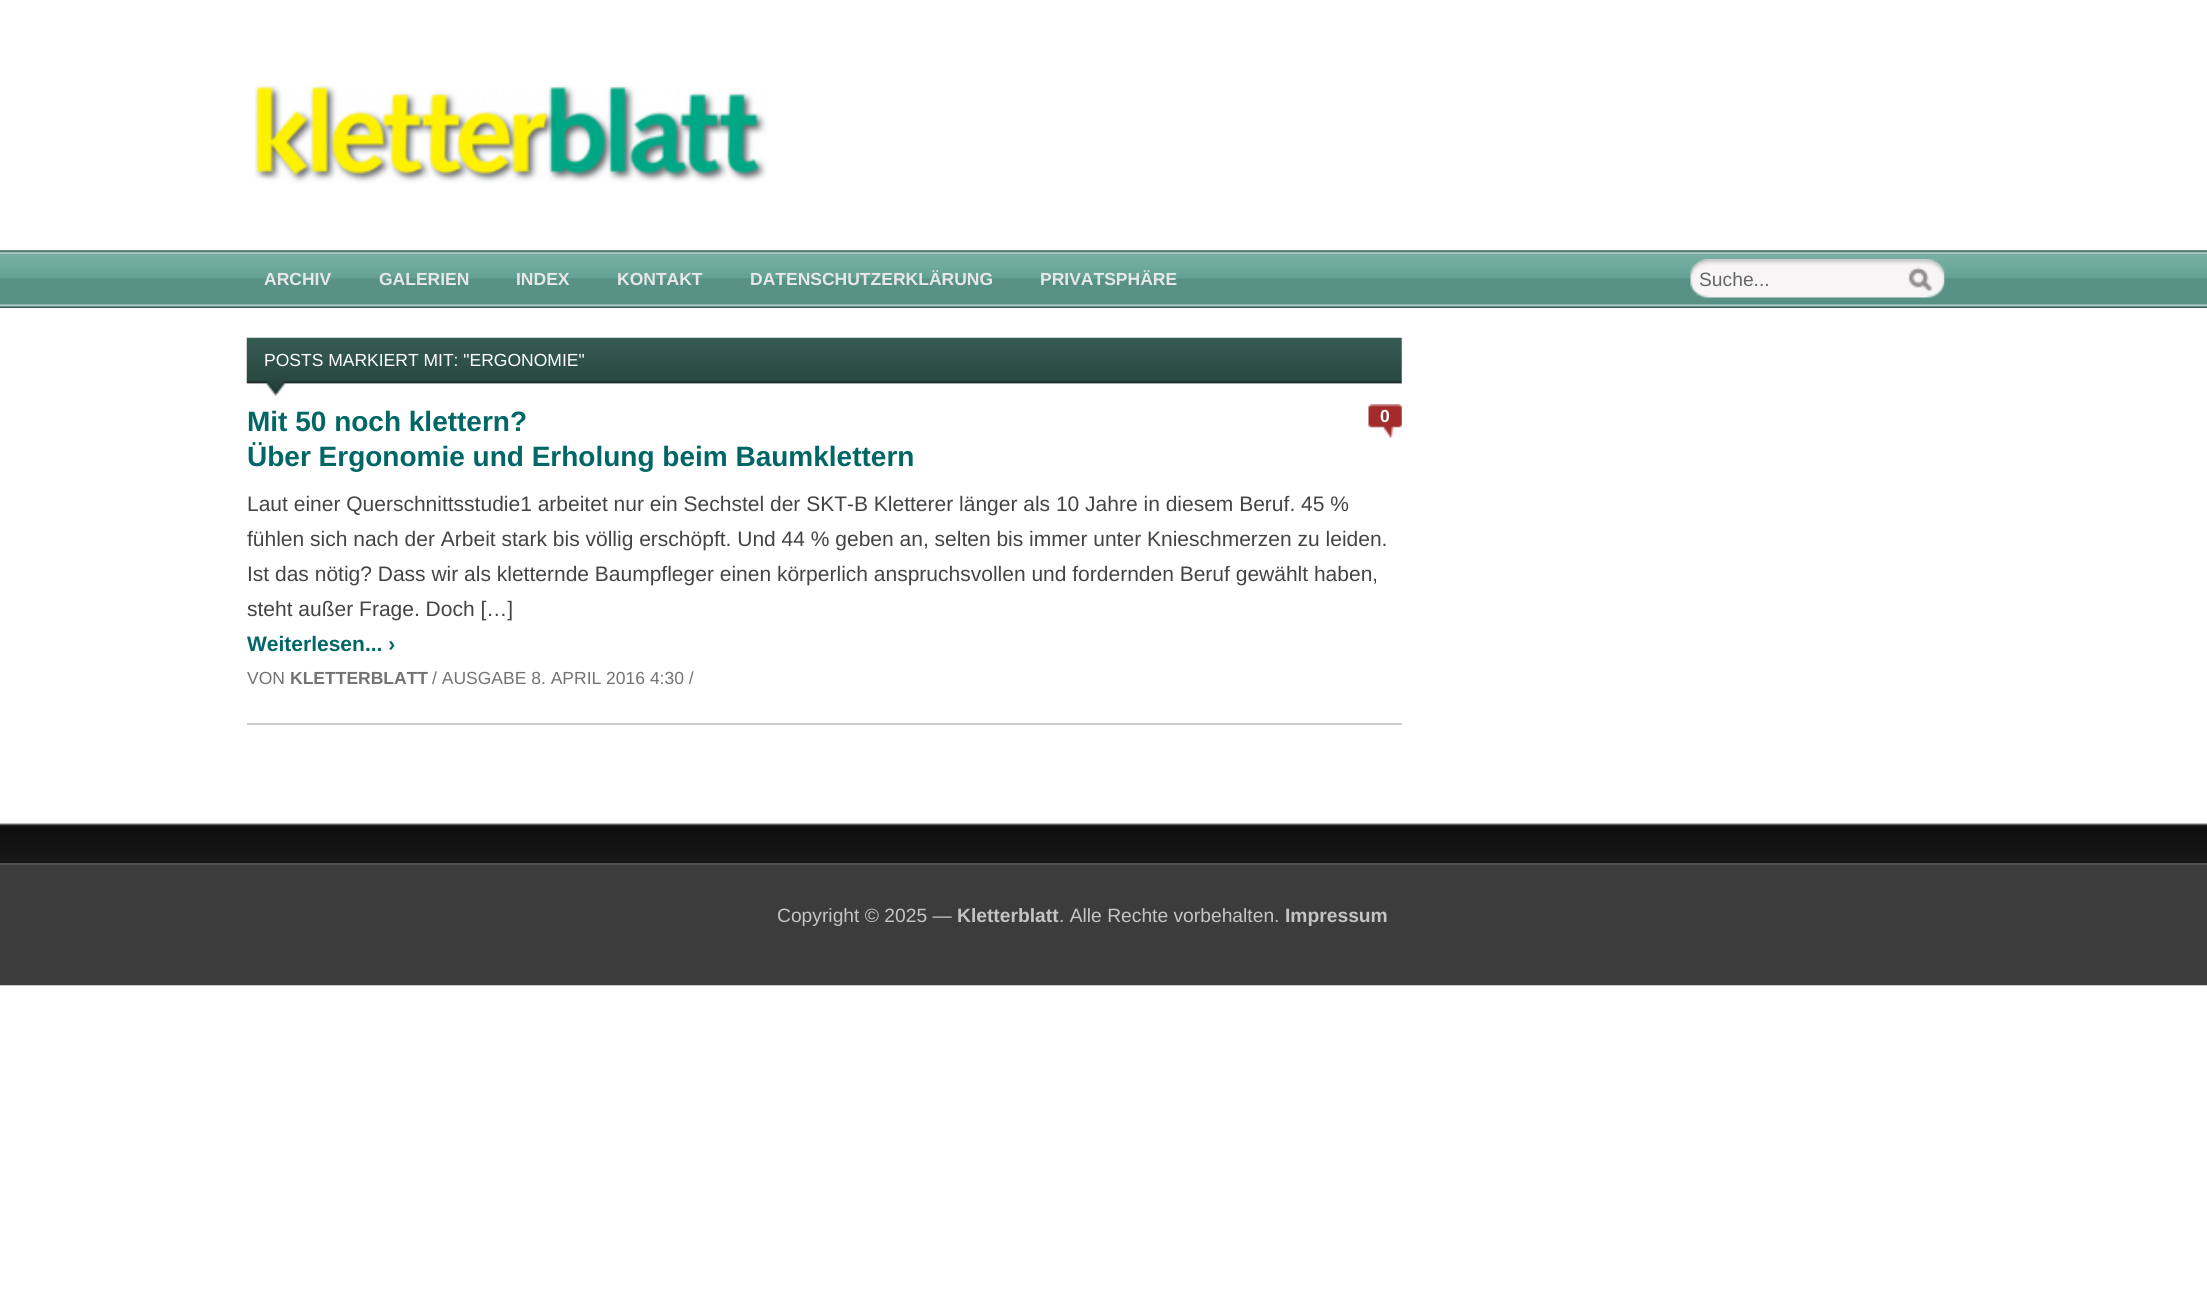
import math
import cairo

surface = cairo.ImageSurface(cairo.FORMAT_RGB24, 2207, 1293)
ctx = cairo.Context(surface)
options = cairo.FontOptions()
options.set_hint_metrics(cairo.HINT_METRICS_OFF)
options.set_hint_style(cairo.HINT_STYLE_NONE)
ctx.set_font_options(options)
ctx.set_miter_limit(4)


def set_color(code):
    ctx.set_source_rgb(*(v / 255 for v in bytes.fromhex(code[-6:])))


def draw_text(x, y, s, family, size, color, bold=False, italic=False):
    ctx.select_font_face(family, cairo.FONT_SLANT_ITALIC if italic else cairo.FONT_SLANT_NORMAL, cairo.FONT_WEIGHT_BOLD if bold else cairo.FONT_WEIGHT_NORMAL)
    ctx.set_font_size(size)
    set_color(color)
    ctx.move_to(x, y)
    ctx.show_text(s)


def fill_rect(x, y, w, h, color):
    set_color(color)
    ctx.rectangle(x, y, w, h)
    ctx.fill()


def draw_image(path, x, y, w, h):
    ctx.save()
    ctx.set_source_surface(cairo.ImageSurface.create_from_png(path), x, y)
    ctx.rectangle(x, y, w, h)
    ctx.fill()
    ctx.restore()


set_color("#ffffff")
ctx.paint()
draw_image("assets/img1.png", 254, 85, 513, 98)
draw_image("assets/img2.png", 0, 250, 2207, 58)
draw_text(264, 285, "ARCHIV", "Liberation Sans", 17.5, "#e7e7e7", bold=True)
draw_text(379, 285, "GALERIEN", "Liberation Sans", 17.5, "#e7e7e7", bold=True)
draw_text(516, 285, "INDEX", "Liberation Sans", 17.5, "#e7e7e7", bold=True)
draw_text(617, 285, "KONTAKT", "Liberation Sans", 17.5, "#e7e7e7", bold=True)
draw_text(750, 285, "DATENSCHUTZERKLÄRUNG", "Liberation Sans", 17.5, "#e7e7e7", bold=True)
draw_text(1040, 285, "PRIVATSPHÄRE", "Liberation Sans", 17.5, "#e7e7e7", bold=True)
draw_image("assets/img3.png", 1690, 259, 255, 39)
draw_text(1699, 286, "Suche...", "Liberation Sans", 19.25, "#656668")
draw_image("assets/img4.png", 246, 337, 1156, 59)
draw_text(264, 366, "POSTS MARKIERT MIT: \"ERGONOMIE\"", "Liberation Sans", 17.5, "#ffffff")
fill_rect(247, 723, 1155, 2, "#cccccc")
draw_text(247, 431, "Mit 50 noch klettern?", "Liberation Sans", 28, "#006666", bold=True)
draw_text(247, 466, "Über Ergonomie und Erholung beim Baumklettern", "Liberation Sans", 28, "#006666", bold=True)
draw_image("assets/img5.png", 1368, 404, 34, 34)
draw_text(1380, 422, "0", "Liberation Sans", 17.5, "#ffffff", bold=True)
draw_text(247, 511, "Laut einer Querschnittsstudie1 arbeitet nur ein Sechstel der SKT-B Kletterer länger als 10 Jahre in diesem Beruf. 45 %", "Liberation Sans", 21, "#444444")
draw_text(247, 546, "fühlen sich nach der Arbeit stark bis völlig erschöpft. Und 44 % geben an, selten bis immer unter Knieschmerzen zu leiden.", "Liberation Sans", 21, "#444444")
draw_text(247, 581, "Ist das nötig? Dass wir als kletternde Baumpfleger einen körperlich anspruchsvollen und fordernden Beruf gewählt haben,", "Liberation Sans", 21, "#444444")
draw_text(247, 616, "steht außer Frage. Doch […]", "Liberation Sans", 21, "#444444")
draw_text(247, 651, "Weiterlesen... ›", "Liberation Sans", 21, "#006666", bold=True)
draw_text(247, 684, "VON", "Liberation Sans", 17.5, "#737373")
draw_text(290, 684, "KLETTERBLATT", "Liberation Sans", 17.5, "#737373", bold=True)
draw_text(432, 684, "/ AUSGABE 8. APRIL 2016 4:30 /", "Liberation Sans", 17.5, "#737373")
draw_image("assets/img6.png", 0, 823, 2207, 163)
fill_rect(0, 865, 2207, 120, "#3c3c3c")
fill_rect(0, 863, 2207, 2, "#525252")
draw_text(777, 922, "Copyright © 2025 —", "Liberation Sans", 19.25, "#c4c4c4")
draw_text(957, 922, "Kletterblatt", "Liberation Sans", 19.25, "#c4c4c4", bold=True)
draw_text(1059, 922, ". Alle Rechte vorbehalten.", "Liberation Sans", 19.25, "#c4c4c4")
draw_text(1285, 922, "Impressum", "Liberation Sans", 19.25, "#c4c4c4", bold=True)
surface.write_to_png("output.png")
